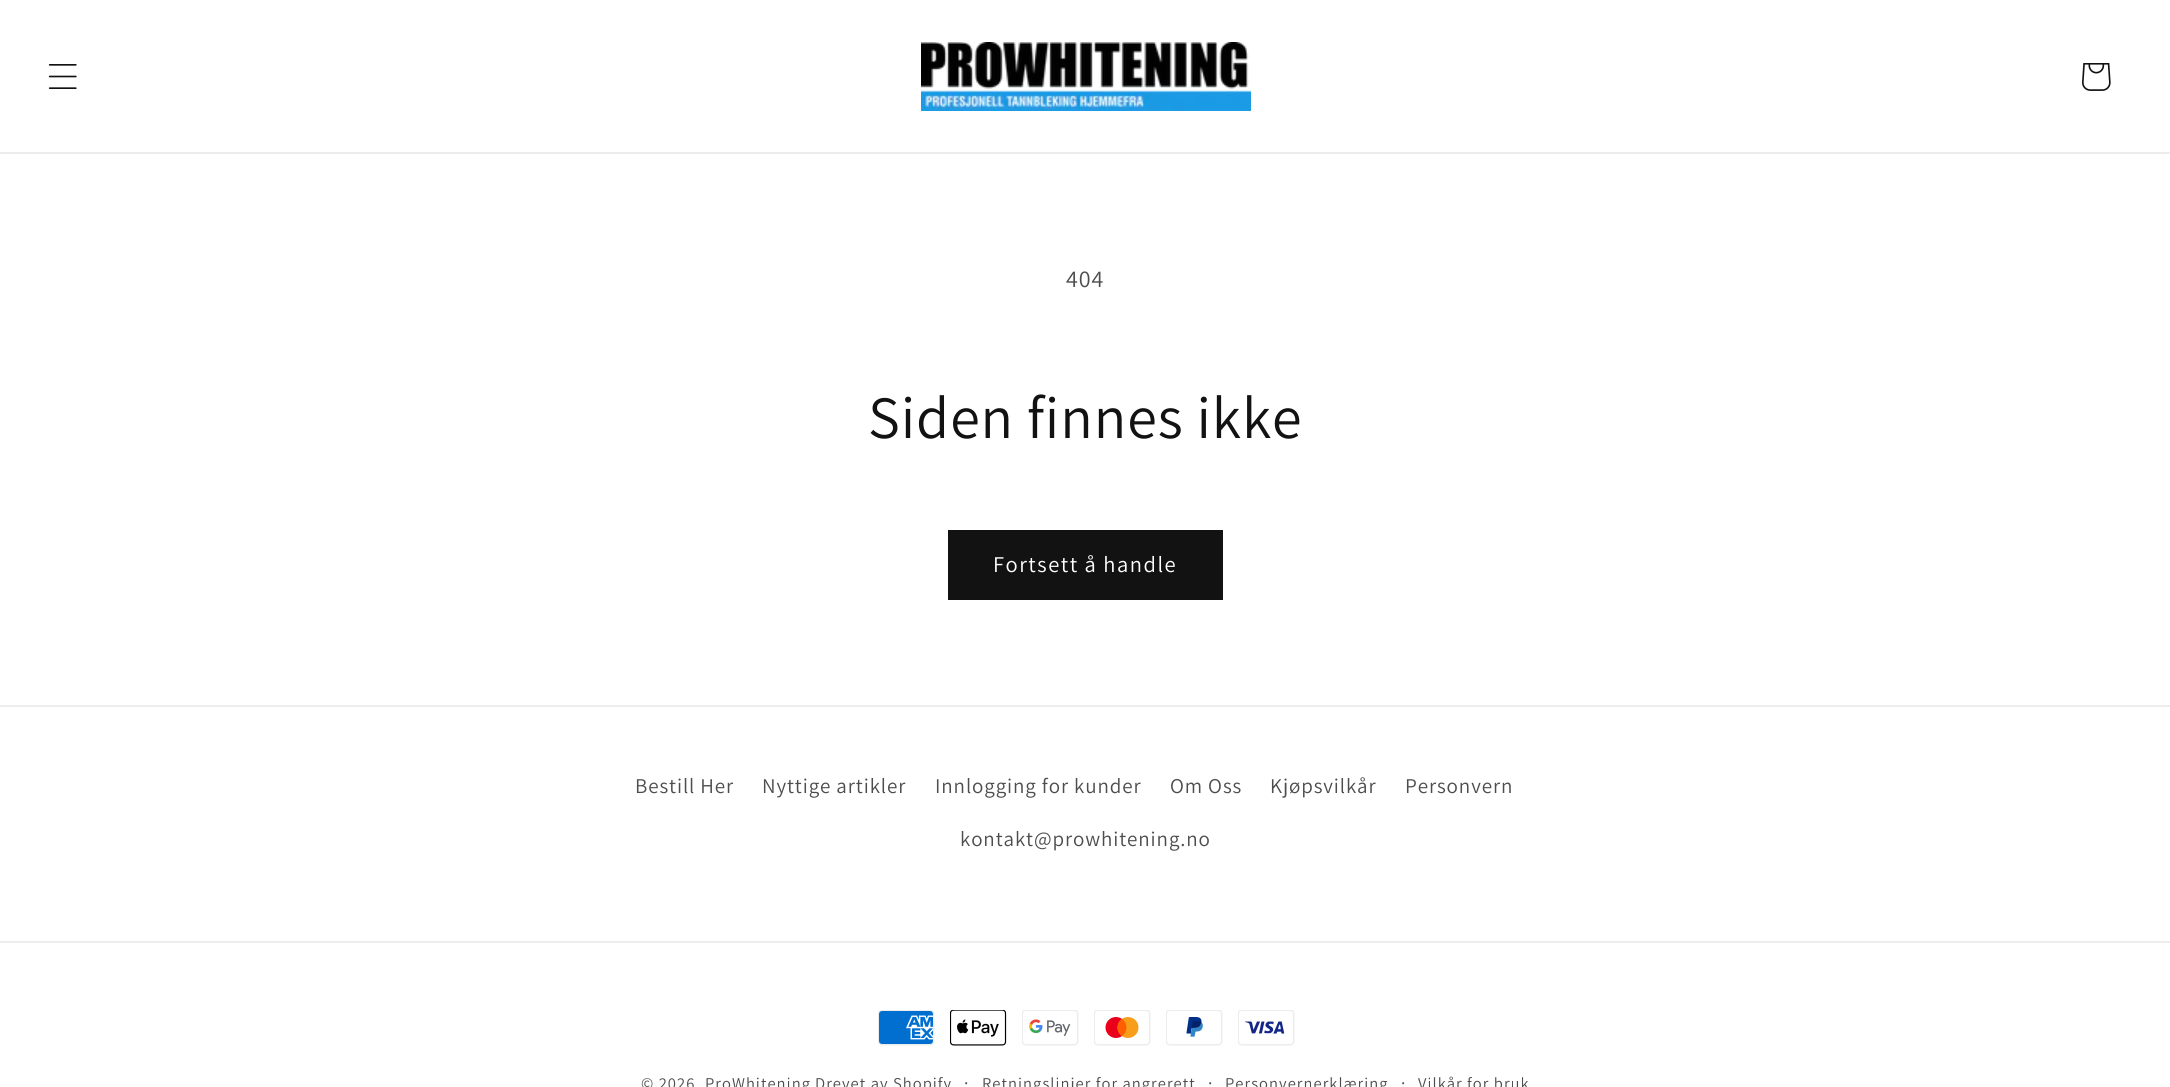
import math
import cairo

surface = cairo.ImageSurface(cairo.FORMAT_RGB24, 2170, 1087)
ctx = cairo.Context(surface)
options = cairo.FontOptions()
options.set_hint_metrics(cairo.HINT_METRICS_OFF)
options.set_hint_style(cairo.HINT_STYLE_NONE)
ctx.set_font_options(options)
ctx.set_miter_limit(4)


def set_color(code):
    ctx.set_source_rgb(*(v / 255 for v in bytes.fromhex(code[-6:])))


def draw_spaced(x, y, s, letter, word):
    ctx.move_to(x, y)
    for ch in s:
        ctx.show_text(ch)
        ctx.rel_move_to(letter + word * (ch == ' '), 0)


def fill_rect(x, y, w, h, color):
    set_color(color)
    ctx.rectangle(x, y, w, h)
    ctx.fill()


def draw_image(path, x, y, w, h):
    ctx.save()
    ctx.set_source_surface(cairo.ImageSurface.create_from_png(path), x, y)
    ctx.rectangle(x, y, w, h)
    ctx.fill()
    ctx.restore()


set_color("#ffffff")
ctx.paint()
fill_rect(0, 152, 2170, 2, "#ececec")
draw_image("assets/img1.png", 48, 64, 29, 25)
draw_image("assets/img2.png", 921, 42, 330, 69)
draw_image("assets/img3.png", 2082, 63, 29, 28)
ctx.select_font_face("Assistant")
ctx.set_font_size(24)
set_color("#4d4d4d")
draw_spaced(1066, 287, "404", 0.9, 0)
ctx.set_font_size(60)
set_color("#121212")
draw_spaced(868, 438, "Siden finnes ikke", 0.9, 0)
fill_rect(948, 530, 275, 70, "#121212")
ctx.set_font_size(22.5)
set_color("#ffffff")
draw_spaced(993, 572, "Fortsett å handle", 1.5, 0)
fill_rect(0, 705, 2170, 2, "#ececec")
ctx.set_font_size(21)
set_color("#4d4d4d")
draw_spaced(635, 793, "Bestill Her", 0.9, 0)
draw_spaced(762, 793, "Nyttige artikler", 0.9, 0)
draw_spaced(935, 793, "Innlogging for kunder", 0.9, 0)
draw_spaced(1170, 793, "Om Oss", 0.9, 0)
draw_spaced(1270, 793, "Kjøpsvilkår", 0.9, 0)
draw_spaced(1405, 793, "Personvern", 0.9, 0)
draw_spaced(960, 846, "kontakt@prowhitening.no", 0.9, 0)
fill_rect(0, 941, 2170, 2, "#ececec")
draw_image("assets/img4.png", 878, 1010, 57, 36)
draw_image("assets/img5.png", 950, 1010, 57, 36)
draw_image("assets/img6.png", 1022, 1010, 57, 36)
draw_image("assets/img7.png", 1094, 1010, 57, 36)
draw_image("assets/img8.png", 1166, 1010, 57, 36)
draw_image("assets/img9.png", 1238, 1010, 57, 36)
ctx.set_font_size(16.5)
set_color("#4d4d4d")
draw_spaced(641, 1089, "© 2026", 1.05, 0)
draw_spaced(705, 1089, "ProWhitening", 1.05, 0)
draw_spaced(815, 1089, "Drevet av Shopify", 1.05, 0)
ctx.set_font_size(18)
draw_spaced(964, 1089, "·", 1.05, 0)
ctx.set_font_size(16.5)
draw_spaced(982, 1089, "Retningslinjer for angrerett", 1.05, 0)
ctx.set_font_size(18)
draw_spaced(1208, 1089, "·", 1.05, 0)
ctx.set_font_size(16.5)
draw_spaced(1225, 1089, "Personvernerklæring", 1.05, 0)
ctx.set_font_size(18)
draw_spaced(1401, 1089, "·", 1.05, 0)
ctx.set_font_size(16.5)
draw_spaced(1418, 1089, "Vilkår for bruk", 1.05, 0)
surface.write_to_png("output.png")
